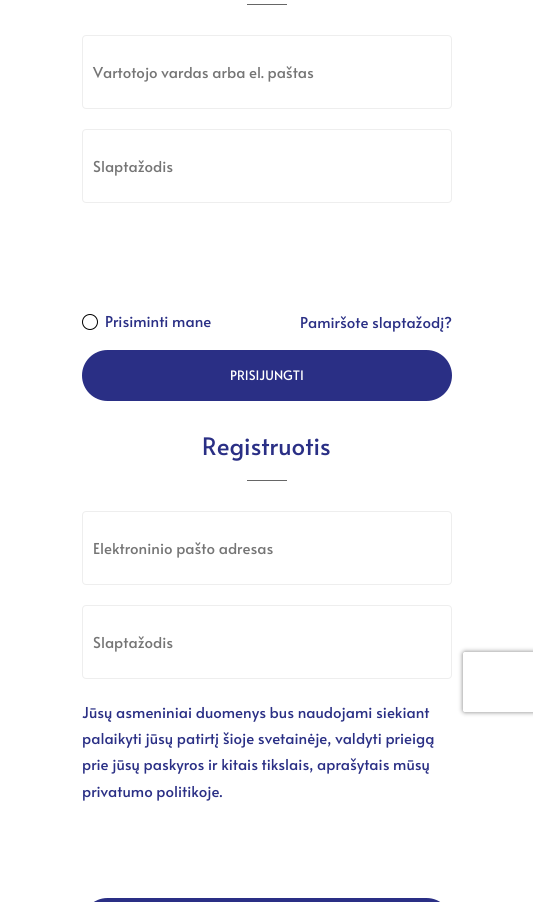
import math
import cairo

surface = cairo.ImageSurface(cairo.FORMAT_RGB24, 533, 902)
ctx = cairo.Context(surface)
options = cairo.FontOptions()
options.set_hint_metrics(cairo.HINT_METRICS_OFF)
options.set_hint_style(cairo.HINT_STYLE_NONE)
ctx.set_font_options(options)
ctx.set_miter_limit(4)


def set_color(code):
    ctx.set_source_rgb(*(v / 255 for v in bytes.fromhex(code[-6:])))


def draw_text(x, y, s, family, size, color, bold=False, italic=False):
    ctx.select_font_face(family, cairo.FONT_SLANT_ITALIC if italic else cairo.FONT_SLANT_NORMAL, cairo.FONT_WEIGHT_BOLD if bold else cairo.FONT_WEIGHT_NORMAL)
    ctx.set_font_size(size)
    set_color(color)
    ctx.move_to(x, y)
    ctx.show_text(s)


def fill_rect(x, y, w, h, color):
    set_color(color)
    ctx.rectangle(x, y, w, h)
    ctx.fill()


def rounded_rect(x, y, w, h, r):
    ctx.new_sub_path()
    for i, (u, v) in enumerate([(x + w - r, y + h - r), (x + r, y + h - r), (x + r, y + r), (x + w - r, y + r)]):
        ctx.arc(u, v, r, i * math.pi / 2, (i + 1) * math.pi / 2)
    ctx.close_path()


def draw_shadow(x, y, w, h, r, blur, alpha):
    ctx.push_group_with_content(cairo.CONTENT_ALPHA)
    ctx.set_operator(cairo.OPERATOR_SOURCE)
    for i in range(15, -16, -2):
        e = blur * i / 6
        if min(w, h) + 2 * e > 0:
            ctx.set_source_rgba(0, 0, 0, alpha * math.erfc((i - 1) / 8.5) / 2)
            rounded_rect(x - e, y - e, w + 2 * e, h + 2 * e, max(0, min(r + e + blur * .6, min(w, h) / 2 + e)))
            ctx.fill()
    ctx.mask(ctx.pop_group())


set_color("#ffffff")
ctx.paint()
fill_rect(247, 4, 40, 1, "#666666")
rounded_rect(82.5, 35.5, 369, 73, 3.5)
set_color("#eeeeee")
ctx.set_line_width(1)
ctx.stroke()
draw_text(93, 78, "Vartotojo vardas arba el. paštas", "Alata", 15, "#757575")
rounded_rect(82.5, 129.5, 369, 73, 3.5)
set_color("#eeeeee")
ctx.stroke()
draw_text(93, 172, "Slaptažodis", "Alata", 15, "#757575")
ctx.new_path()
ctx.arc(90, 322, 7.5, 0, 2 * math.pi)
set_color("#000000")
ctx.stroke()
draw_text(105, 327, "Prisiminti mane", "Alata", 15, "#2a2f85")
draw_text(300, 328, "Pamiršote slaptažodį?", "Alata", 15, "#2a2f85")
rounded_rect(82, 350, 370, 51, 25.5)
ctx.fill()
draw_text(230, 380, "PRISIJUNGTI", "Alata", 13, "#ffffff")
draw_text(202, 455, "Registruotis", "Alata", 24, "#2a2f85")
fill_rect(247, 480, 40, 1, "#666666")
rounded_rect(82.5, 511.5, 369, 73, 3.5)
set_color("#eeeeee")
ctx.stroke()
draw_text(93, 554, "Elektroninio pašto adresas", "Alata", 15, "#757575")
rounded_rect(82.5, 605.5, 369, 73, 3.5)
set_color("#eeeeee")
ctx.stroke()
draw_text(93, 648, "Slaptažodis", "Alata", 15, "#757575")
draw_text(82, 718, "Jūsų asmeniniai duomenys bus naudojami siekiant", "Alata", 15, "#2a2f85")
draw_text(82, 744, "palaikyti jūsų patirtį šioje svetainėje, valdyti prieigą", "Alata", 15, "#2a2f85")
draw_text(82, 770, "prie jūsų paskyros ir kitais tikslais, aprašytais mūsų", "Alata", 15, "#2a2f85")
draw_text(82, 797, "privatumo politikoje.", "Alata", 15, "#2a2f85")
rounded_rect(82, 898, 370, 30, 25.5)
ctx.fill()
ctx.save()
ctx.set_fill_rule(cairo.FILL_RULE_EVEN_ODD)
ctx.new_path()
ctx.move_to(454, 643)
ctx.line_to(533, 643)
ctx.line_to(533, 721)
ctx.line_to(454, 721)
ctx.close_path()
ctx.move_to(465, 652)
ctx.line_to(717, 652)
ctx.curve_to(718, 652, 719, 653, 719, 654)
ctx.line_to(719, 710)
ctx.curve_to(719, 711, 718, 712, 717, 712)
ctx.line_to(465, 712)
ctx.curve_to(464, 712, 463, 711, 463, 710)
ctx.line_to(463, 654)
ctx.curve_to(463, 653, 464, 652, 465, 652)
ctx.close_path()
ctx.clip()
set_color("#808080")
draw_shadow(463, 652, 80, 60, 2, 2.5, 1)
ctx.restore()
surface.write_to_png("output.png")
